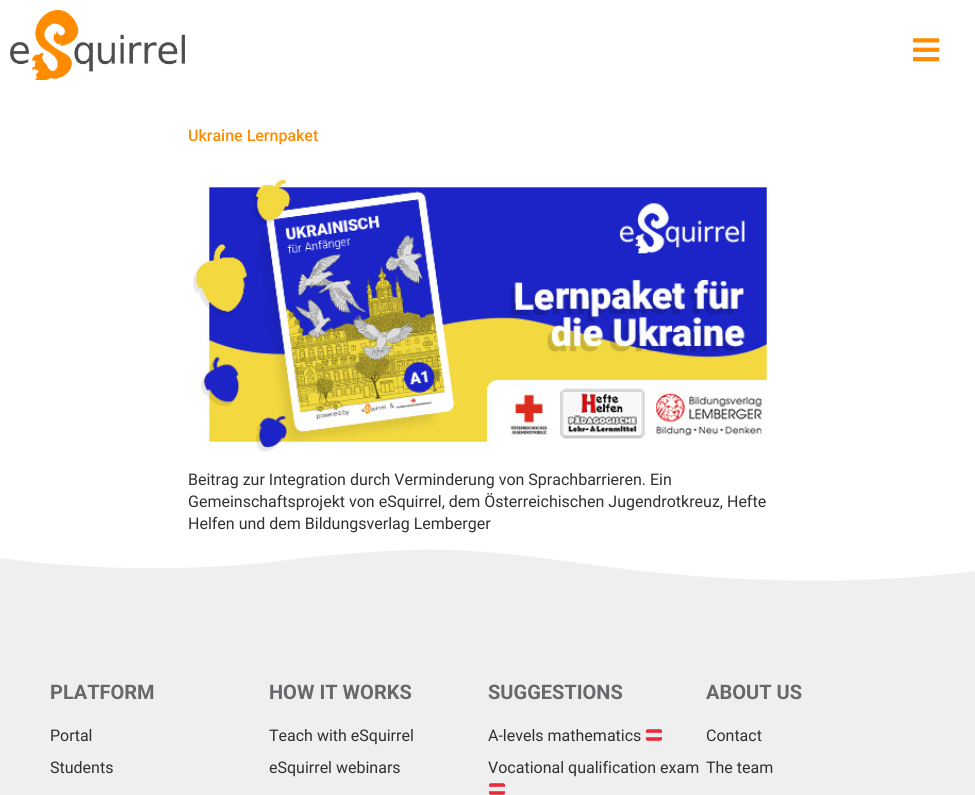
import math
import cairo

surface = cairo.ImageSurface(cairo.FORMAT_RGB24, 975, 795)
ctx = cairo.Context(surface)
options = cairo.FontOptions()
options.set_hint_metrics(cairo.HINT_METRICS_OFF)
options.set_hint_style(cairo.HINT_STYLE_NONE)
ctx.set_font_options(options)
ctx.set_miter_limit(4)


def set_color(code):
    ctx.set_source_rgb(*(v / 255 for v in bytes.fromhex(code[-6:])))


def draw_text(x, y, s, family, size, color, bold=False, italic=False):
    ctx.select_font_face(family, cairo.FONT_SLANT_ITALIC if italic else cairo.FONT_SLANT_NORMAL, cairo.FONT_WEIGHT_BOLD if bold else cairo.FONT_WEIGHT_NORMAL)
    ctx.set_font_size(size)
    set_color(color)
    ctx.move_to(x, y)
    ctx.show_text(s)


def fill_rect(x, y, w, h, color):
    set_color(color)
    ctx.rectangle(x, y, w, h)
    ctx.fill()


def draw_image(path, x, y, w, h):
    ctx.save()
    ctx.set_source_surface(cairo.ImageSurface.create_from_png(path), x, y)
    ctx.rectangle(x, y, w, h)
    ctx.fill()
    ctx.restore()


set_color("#ffffff")
ctx.paint()
draw_image("assets/img1.png", 10, 10, 175, 70)
draw_image("assets/img2.png", 913, 38, 27, 24)
draw_text(188, 141, "Ukraine Lernpaket", "Roboto Medium", 16, "#ff8c00")
draw_image("assets/img3.png", 193, 175, 574, 277)
draw_text(188, 485, "Beitrag zur Integration durch Verminderung von Sprachbarrieren. Ein", "Roboto", 16, "#303030")
draw_text(188, 507, "Gemeinschaftsprojekt von eSquirrel, dem Österreichischen Jugendrotkreuz, Hefte", "Roboto", 16, "#303030")
draw_text(188, 529, "Helfen und dem Bildungsverlag Lemberger", "Roboto", 16, "#303030")
fill_rect(0, 549, 975, 246, "#efefef")
set_color("#ffffff")
ctx.new_path()
ctx.move_to(412, 550)
ctx.curve_to(495, 547, 578, 565, 660, 573)
ctx.curve_to(764, 583, 873, 584, 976, 571)
ctx.line_to(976, 548)
ctx.line_to(0, 548)
ctx.line_to(0, 558)
ctx.curve_to(23, 561, 46, 564, 68, 565)
ctx.curve_to(130, 570, 192, 569, 253, 564)
ctx.line_to(322, 556)
ctx.curve_to(352, 553, 382, 551, 412, 550)
ctx.close_path()
ctx.fill()
draw_text(50, 699, "PLATFORM", "Roboto", 20, "#67676c", bold=True)
draw_text(50, 741, "Portal", "Roboto", 16, "#303030")
draw_text(50, 773, "Students", "Roboto", 16, "#303030")
draw_text(269, 699, "HOW IT WORKS", "Roboto", 20, "#67676c", bold=True)
draw_text(269, 741, "Teach with eSquirrel", "Roboto", 16, "#303030")
draw_text(269, 773, "eSquirrel webinars", "Roboto", 16, "#303030")
draw_text(488, 699, "SUGGESTIONS", "Roboto", 20, "#67676c", bold=True)
draw_text(488, 741, "A-levels mathematics", "Roboto", 16, "#303030")
draw_image("assets/img4.png", 646, 729, 16, 12)
draw_text(488, 773, "Vocational qualification exam", "Roboto", 16, "#303030")
draw_image("assets/img4.png", 489, 783, 16, 12)
draw_text(706, 699, "ABOUT US", "Roboto", 20, "#67676c", bold=True)
draw_text(706, 741, "Contact", "Roboto", 16, "#303030")
draw_text(706, 773, "The team", "Roboto", 16, "#303030")
surface.write_to_png("output.png")
